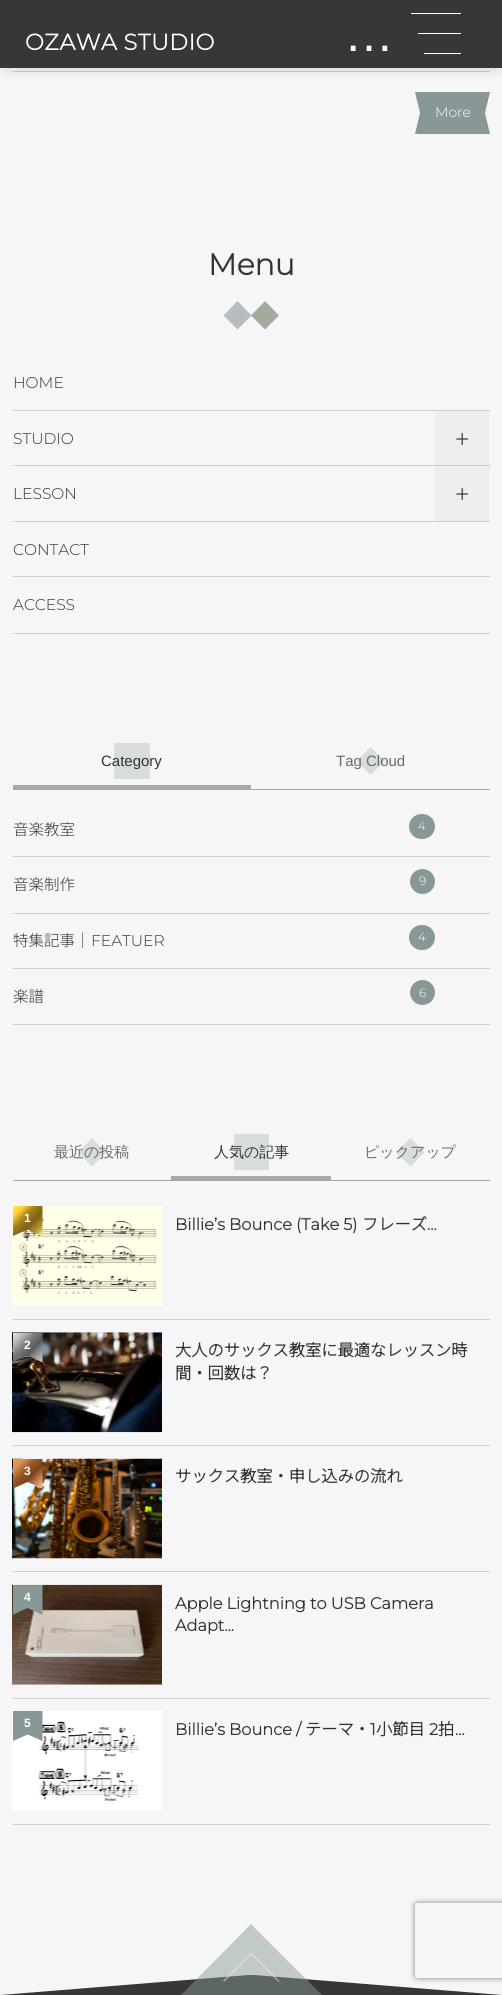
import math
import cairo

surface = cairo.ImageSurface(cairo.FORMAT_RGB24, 502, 1995)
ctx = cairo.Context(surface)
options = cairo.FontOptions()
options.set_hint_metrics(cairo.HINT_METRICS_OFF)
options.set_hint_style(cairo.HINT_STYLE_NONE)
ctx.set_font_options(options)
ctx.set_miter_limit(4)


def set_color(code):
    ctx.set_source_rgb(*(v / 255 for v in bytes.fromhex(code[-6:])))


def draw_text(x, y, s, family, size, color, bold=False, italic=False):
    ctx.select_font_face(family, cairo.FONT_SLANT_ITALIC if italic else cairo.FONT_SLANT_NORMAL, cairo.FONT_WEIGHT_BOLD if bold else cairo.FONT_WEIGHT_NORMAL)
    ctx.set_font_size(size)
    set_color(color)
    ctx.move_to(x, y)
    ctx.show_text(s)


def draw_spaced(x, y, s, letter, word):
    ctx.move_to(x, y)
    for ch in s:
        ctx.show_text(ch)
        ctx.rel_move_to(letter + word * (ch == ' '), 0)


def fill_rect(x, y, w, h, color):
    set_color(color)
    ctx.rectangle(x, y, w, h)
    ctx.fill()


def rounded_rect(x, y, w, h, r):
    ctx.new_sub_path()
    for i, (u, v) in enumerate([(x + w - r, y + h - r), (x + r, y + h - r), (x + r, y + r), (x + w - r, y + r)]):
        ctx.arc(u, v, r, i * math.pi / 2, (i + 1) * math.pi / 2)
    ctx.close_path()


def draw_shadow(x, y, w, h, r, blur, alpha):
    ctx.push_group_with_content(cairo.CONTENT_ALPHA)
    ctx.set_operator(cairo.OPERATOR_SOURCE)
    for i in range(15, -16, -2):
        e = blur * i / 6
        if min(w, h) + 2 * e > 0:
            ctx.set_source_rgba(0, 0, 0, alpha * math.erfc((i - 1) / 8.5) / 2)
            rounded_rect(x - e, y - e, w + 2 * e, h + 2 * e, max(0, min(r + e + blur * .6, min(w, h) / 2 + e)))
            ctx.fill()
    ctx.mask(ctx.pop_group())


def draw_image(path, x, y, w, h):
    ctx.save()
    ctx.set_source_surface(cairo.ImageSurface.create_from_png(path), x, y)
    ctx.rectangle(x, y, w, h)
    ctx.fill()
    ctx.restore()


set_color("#f6f6f8")
ctx.paint()
fill_rect(13, 71, 477, 1, "#cfcfd1")
set_color("#000000")
draw_shadow(5, -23, 493, 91, 0, 7.5, 0.16)
fill_rect(0, 0, 502, 68, "#373737")
ctx.select_font_face("Montserrat", cairo.FONT_SLANT_NORMAL, cairo.FONT_WEIGHT_BOLD)
ctx.set_font_size(22.5)
set_color("#ffffff")
draw_spaced(25, 50, "OZAWA STUDIO", 0.5, 0)
draw_text(344, 51, "…", "Liberation Sans", 50, "#ffffff")
fill_rect(411, 13, 50, 1, "#ffffff")
fill_rect(418, 33, 43, 1, "#ffffff")
fill_rect(424, 53, 37, 1, "#ffffff")
set_color("#889897")
ctx.new_path()
ctx.move_to(490, 92)
ctx.line_to(485, 113)
ctx.line_to(490, 134)
ctx.line_to(415, 134)
ctx.line_to(420, 113)
ctx.line_to(415, 92)
ctx.close_path()
ctx.fill()
draw_text(435, 117, "More", "Montserrat Thin", 14, "#ffffff")
draw_text(208, 275, "Menu", "Montserrat", 30, "#333333", bold=True)
set_color("#b4bebe")
ctx.new_path()
ctx.move_to(237.5, 301)
ctx.line_to(251.5, 315.5)
ctx.line_to(237.5, 329.5)
ctx.line_to(223.5, 315.5)
ctx.close_path()
ctx.fill()
ctx.set_source_rgba(0.439, 0.471, 0.392, 0.6)
ctx.new_path()
ctx.move_to(265, 301)
ctx.line_to(279, 315.5)
ctx.line_to(265, 329.5)
ctx.line_to(251, 315.5)
ctx.close_path()
ctx.fill()
fill_rect(13, 410, 477, 1, "#cfcfd1")
draw_text(13, 388, "HOME", "Montserrat Thin", 15.5, "#333333")
fill_rect(13, 465, 422, 1, "#cfcfd1")
fill_rect(435, 465, 55, 1, "#c9c9cb")
draw_text(13, 444, "STUDIO", "Montserrat Thin", 15.5, "#333333")
fill_rect(435, 411, 55, 54, "#eeeef0")
draw_image("assets/img1.png", 456, 433, 13, 12)
fill_rect(13, 521, 477, 1, "#cfcfd1")
draw_text(13, 499, "LESSON", "Montserrat Thin", 15.5, "#333333")
fill_rect(435, 466, 55, 55, "#eeeef0")
draw_image("assets/img2.png", 456, 488, 13, 12)
fill_rect(13, 576, 477, 1, "#cfcfd1")
draw_text(13, 555, "CONTACT", "Montserrat Thin", 15.5, "#333333")
fill_rect(13, 633, 477, 1, "#cfcfd1")
draw_text(13, 610, "ACCESS", "Montserrat Thin", 15.5, "#333333")
fill_rect(13, 789, 477, 1, "#a8a8a9")
fill_rect(13, 785, 238, 4, "#a8a8a9")
fill_rect(114, 743, 36, 36, "#d7dcdd")
draw_text(101, 766, "Category", "Liberation Sans", 15, "#333333")
set_color("#d7dcdd")
ctx.new_path()
ctx.move_to(370.5, 747)
ctx.line_to(385, 761)
ctx.line_to(370.5, 775)
ctx.line_to(356.5, 761)
ctx.close_path()
ctx.fill()
draw_text(336, 766, "Tag Cloud", "Liberation Sans", 15, "#6b6b6c")
fill_rect(13, 856, 477, 1, "#cfcfd1")
draw_text(13, 835, "音楽教室", "Noto Sans JP Thin", 15.5, "#333333")
set_color("#889897")
rounded_rect(409, 814, 26, 25, 12.5)
ctx.fill()
draw_text(418, 830, "4", "Montserrat Thin", 12, "#ffffff")
fill_rect(13, 913, 477, 1, "#cfcfd1")
draw_text(13, 890, "音楽制作", "Noto Sans JP Thin", 15.5, "#333333")
set_color("#889897")
ctx.new_path()
ctx.arc(422.5, 881.5, 12.5, 0, 2 * math.pi)
ctx.fill()
draw_text(419, 885, "9", "Montserrat Thin", 12, "#ffffff")
fill_rect(13, 968, 477, 1, "#cfcfd1")
draw_text(13, 946, "特集記事｜", "Noto Sans JP Thin", 15.5, "#333333")
draw_text(91, 946, "FEATUER", "Montserrat Thin", 15.5, "#333333")
set_color("#889897")
rounded_rect(409, 925, 26, 25, 12.5)
ctx.fill()
draw_text(418, 941, "4", "Montserrat Thin", 12, "#ffffff")
fill_rect(13, 1024, 477, 1, "#cfcfd1")
draw_text(13, 1002, "楽譜", "Noto Sans JP Thin", 15.5, "#333333")
set_color("#889897")
ctx.new_path()
ctx.arc(422.5, 992.5, 12.5, 0, 2 * math.pi)
ctx.fill()
draw_text(419, 997, "6", "Montserrat Thin", 12, "#ffffff")
fill_rect(13, 1180, 477, 1, "#a8a8a9")
set_color("#d7dcdd")
ctx.new_path()
ctx.move_to(92, 1138)
ctx.line_to(106, 1152.5)
ctx.line_to(92, 1166.5)
ctx.line_to(78, 1152.5)
ctx.close_path()
ctx.fill()
draw_text(54, 1157, "最近の投稿", "WenQuanYi Zen Hei Medium", 15, "#6b6b6c")
fill_rect(171, 1176, 160, 4, "#a8a8a9")
fill_rect(234, 1134, 35, 36, "#d7dcdd")
draw_text(214, 1157, "人気の記事", "WenQuanYi Zen Hei Medium", 15, "#333333")
set_color("#d7dcdd")
ctx.new_path()
ctx.move_to(410.5, 1138)
ctx.line_to(424.5, 1152.5)
ctx.line_to(410.5, 1166.5)
ctx.line_to(396, 1152.5)
ctx.close_path()
ctx.fill()
draw_text(364, 1157, "ピックアップ", "WenQuanYi Zen Hei Medium", 15, "#6b6b6c")
fill_rect(13, 1319, 477, 1, "#cfcfd1")
draw_image("assets/img3.png", 12, 1206, 150, 100)
gradient = cairo.LinearGradient(12, 1206, 43, 1236)
gradient.add_color_stop_rgba(0, 1, 0.945, 0.275, 1)
gradient.add_color_stop_rgba(0.2, 1, 0.8, 0.235, 1)
gradient.add_color_stop_rgba(0.4, 0.635, 0.494, 0.094, 1)
gradient.add_color_stop_rgba(0.6, 0.49, 0.384, 0.086, 1)
gradient.add_color_stop_rgba(0.8, 0.71, 0.573, 0.192, 1)
gradient.add_color_stop_rgba(1, 1, 1, 0.569, 1)
ctx.set_source(gradient)
ctx.new_path()
ctx.move_to(42.5, 1206)
ctx.line_to(42.5, 1236)
ctx.line_to(27.5, 1229.5)
ctx.line_to(13, 1236)
ctx.line_to(13, 1206)
ctx.close_path()
ctx.fill()
draw_text(24, 1222, "1", "Liberation Sans", 12, "#ffffff", bold=True)
draw_text(175, 1230, "Billie’s Bounce (Take 5)", "Montserrat", 16.25, "#333333", bold=True)
draw_text(362, 1230, "フレーズ", "Noto Sans JP", 16.25, "#333333", bold=True)
draw_text(427, 1230, "...", "Montserrat", 16.25, "#333333", bold=True)
fill_rect(13, 1445, 477, 1, "#cfcfd1")
draw_image("assets/img4.png", 12, 1332, 150, 101)
gradient = cairo.LinearGradient(12, 1333, 43, 1363)
gradient.add_color_stop_rgba(0, 0.925, 0.925, 0.925, 1)
gradient.add_color_stop_rgba(0.2, 0.733, 0.733, 0.733, 1)
gradient.add_color_stop_rgba(0.4, 0.49, 0.49, 0.49, 1)
gradient.add_color_stop_rgba(0.6, 0.353, 0.353, 0.353, 1)
gradient.add_color_stop_rgba(0.8, 0.62, 0.616, 0.616, 1)
gradient.add_color_stop_rgba(1, 0.831, 0.831, 0.831, 1)
ctx.set_source(gradient)
ctx.new_path()
ctx.move_to(13, 1333)
ctx.line_to(42.5, 1333)
ctx.line_to(42.5, 1362.5)
ctx.line_to(27.5, 1355.5)
ctx.line_to(13, 1362)
ctx.close_path()
ctx.fill()
draw_text(24, 1349, "2", "Liberation Sans", 12, "#ffffff", bold=True)
draw_text(175, 1356, "大人のサックス教室に最適なレッスン時", "Noto Sans JP", 16.25, "#333333", bold=True)
draw_text(175, 1379, "間・回数は？", "Noto Sans JP", 16.25, "#333333", bold=True)
fill_rect(13, 1571, 477, 1, "#cfcfd1")
draw_image("assets/img5.png", 12, 1458, 150, 101)
gradient = cairo.LinearGradient(12, 1459, 43, 1489)
gradient.add_color_stop_rgba(0, 0.996, 0.612, 0.216, 1)
gradient.add_color_stop_rgba(0.2, 0.855, 0.576, 0.337, 1)
gradient.add_color_stop_rgba(0.4, 0.588, 0.349, 0.149, 1)
gradient.add_color_stop_rgba(0.6, 0.482, 0.267, 0.114, 1)
gradient.add_color_stop_rgba(0.8, 0.82, 0.529, 0.392, 1)
gradient.add_color_stop_rgba(1, 1, 0.839, 0.675, 1)
ctx.set_source(gradient)
ctx.new_path()
ctx.move_to(13, 1459)
ctx.line_to(42.5, 1459)
ctx.line_to(42.5, 1488.5)
ctx.line_to(27.5, 1482)
ctx.line_to(13, 1488.5)
ctx.close_path()
ctx.fill()
draw_text(24, 1475, "3", "Liberation Sans", 12, "#ffffff", bold=True)
draw_text(175, 1482, "サックス教室・申し込みの流れ", "Noto Sans JP", 16.25, "#333333", bold=True)
fill_rect(13, 1698, 477, 1, "#cfcfd1")
draw_image("assets/img6.png", 12, 1584, 150, 101)
set_color("#889897")
ctx.new_path()
ctx.move_to(13, 1585)
ctx.line_to(42.5, 1585)
ctx.line_to(42.5, 1615)
ctx.line_to(27.5, 1608)
ctx.line_to(13, 1614.5)
ctx.close_path()
ctx.fill()
draw_text(24, 1601, "4", "Liberation Sans", 12, "#ffffff", bold=True)
draw_text(175, 1609, "Apple Lightning to USB Camera", "Montserrat", 16.25, "#333333", bold=True)
draw_text(175, 1631, "Adapt...", "Montserrat", 16.25, "#333333", bold=True)
fill_rect(13, 1824, 477, 1, "#cfcfd1")
draw_image("assets/img7.png", 12, 1711, 150, 100)
set_color("#889897")
ctx.new_path()
ctx.move_to(42.5, 1711)
ctx.line_to(42.5, 1741)
ctx.line_to(27.5, 1734.5)
ctx.line_to(13, 1741)
ctx.line_to(13, 1711)
ctx.close_path()
ctx.fill()
draw_text(24, 1727, "5", "Liberation Sans", 12, "#ffffff", bold=True)
draw_text(175, 1735, "Billie’s Bounce /", "Montserrat", 16.25, "#333333", bold=True)
draw_text(305, 1735, "テーマ・", "Noto Sans JP", 16.25, "#333333", bold=True)
draw_text(370, 1735, "1", "Montserrat", 16.25, "#333333", bold=True)
draw_text(376, 1735, "小節目", "Noto Sans JP", 16.25, "#333333", bold=True)
draw_text(429, 1735, "2", "Montserrat", 16.25, "#333333", bold=True)
draw_text(438, 1735, "拍", "Noto Sans JP", 16.25, "#333333", bold=True)
draw_text(455, 1735, "...", "Montserrat", 16.25, "#333333", bold=True)
ctx.save()
ctx.set_fill_rule(cairo.FILL_RULE_EVEN_ODD)
ctx.new_path()
ctx.move_to(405, 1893)
ctx.line_to(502, 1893)
ctx.line_to(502, 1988)
ctx.line_to(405, 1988)
ctx.close_path()
ctx.move_to(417.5, 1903)
ctx.line_to(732.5, 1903)
ctx.curve_to(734, 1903, 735, 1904, 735, 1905.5)
ctx.line_to(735, 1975.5)
ctx.curve_to(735, 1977, 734, 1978, 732.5, 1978)
ctx.line_to(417.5, 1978)
ctx.curve_to(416, 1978, 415, 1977, 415, 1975.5)
ctx.line_to(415, 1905.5)
ctx.curve_to(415, 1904, 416, 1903, 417.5, 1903)
ctx.close_path()
ctx.clip()
set_color("#808080")
draw_shadow(415, 1903, 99, 75, 2.5, 3, 1)
ctx.restore()
draw_image("assets/img8.png", 0, 1974, 502, 21)
set_color("#373737")
ctx.new_path()
ctx.move_to(0, 1995)
ctx.line_to(0, 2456)
ctx.line_to(502, 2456)
ctx.line_to(502, 1995)
ctx.line_to(254, 1975)
ctx.line_to(248, 1975)
ctx.close_path()
ctx.fill()
ctx.set_source_rgba(0.533, 0.596, 0.592, 0.48)
ctx.new_path()
ctx.move_to(251, 1924)
ctx.line_to(322, 1995)
ctx.line_to(251, 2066)
ctx.line_to(181, 1995)
ctx.close_path()
ctx.fill()
ctx.set_source_rgba(0.973, 0.973, 0.961, 0.48)
ctx.new_path()
ctx.move_to(223, 1981)
ctx.line_to(251, 1953)
ctx.line_to(252, 1953.5)
ctx.line_to(224, 1982)
ctx.close_path()
ctx.fill()
ctx.new_path()
ctx.move_to(251.5, 1953)
ctx.line_to(279.5, 1981)
ctx.line_to(278.5, 1982)
ctx.line_to(250.5, 1953.5)
ctx.close_path()
ctx.fill()
surface.write_to_png("output.png")
